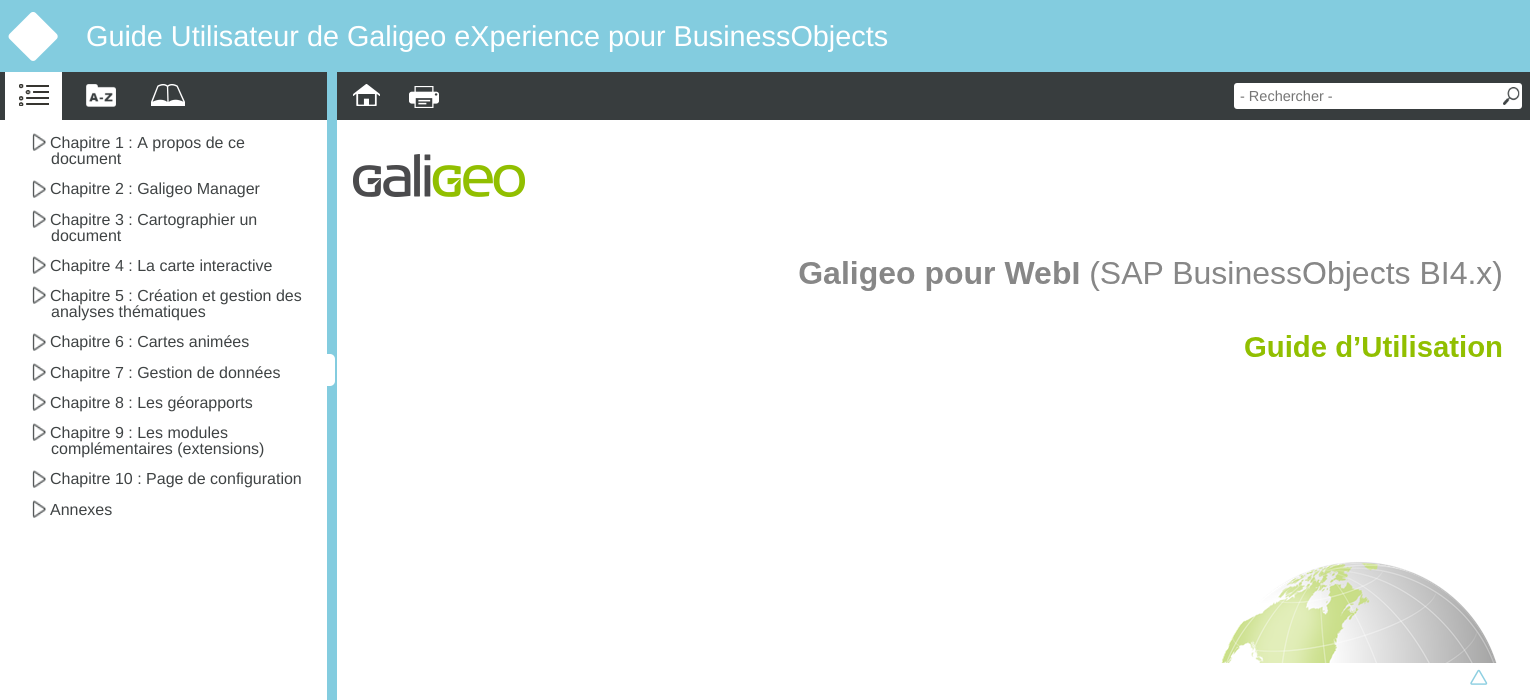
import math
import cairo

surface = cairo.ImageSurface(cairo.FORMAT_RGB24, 1530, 700)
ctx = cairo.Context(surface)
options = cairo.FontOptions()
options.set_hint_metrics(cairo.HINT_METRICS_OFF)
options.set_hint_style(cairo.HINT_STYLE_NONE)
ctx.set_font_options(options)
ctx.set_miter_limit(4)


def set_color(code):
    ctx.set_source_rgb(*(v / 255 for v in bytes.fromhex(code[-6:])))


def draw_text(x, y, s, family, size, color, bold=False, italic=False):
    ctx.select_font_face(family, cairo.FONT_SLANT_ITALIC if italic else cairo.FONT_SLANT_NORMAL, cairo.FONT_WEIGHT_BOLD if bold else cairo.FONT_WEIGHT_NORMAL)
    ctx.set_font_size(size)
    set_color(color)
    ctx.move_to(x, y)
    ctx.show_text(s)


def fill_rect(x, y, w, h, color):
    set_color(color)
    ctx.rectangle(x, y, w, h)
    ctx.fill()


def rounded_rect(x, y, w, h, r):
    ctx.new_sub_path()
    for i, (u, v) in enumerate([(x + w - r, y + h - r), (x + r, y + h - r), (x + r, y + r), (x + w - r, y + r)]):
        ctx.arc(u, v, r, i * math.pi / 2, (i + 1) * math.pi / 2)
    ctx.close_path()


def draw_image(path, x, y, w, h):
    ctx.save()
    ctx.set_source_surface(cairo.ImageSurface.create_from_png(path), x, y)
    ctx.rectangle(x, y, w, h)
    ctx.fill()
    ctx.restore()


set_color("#ffffff")
ctx.paint()
fill_rect(0, 0, 1530, 72, "#83ccdf")
draw_image("assets/img1.png", 8, 12, 50, 49)
draw_text(86, 46, "Guide Utilisateur de Galigeo eXperience pour BusinessObjects", "Liberation Sans", 28.8, "#ffffff")
fill_rect(337, 72, 1193, 48, "#383d3e")
draw_image("assets/img2.png", 353, 84, 27, 22)
draw_image("assets/img3.png", 409, 86, 30, 22)
set_color("#ffffff")
rounded_rect(1234, 83, 288, 26, 3)
ctx.fill()
draw_text(1240, 101, "- Rechercher -", "Liberation Sans", 14.5, "#757575")
draw_image("assets/img4.png", 1503, 87, 17, 18)
draw_image("assets/img5.png", 353, 154, 1149, 509)
draw_image("assets/img6.png", 1470, 669, 18, 16)
fill_rect(0, 72, 327, 48, "#383d3e")
fill_rect(5, 72, 57, 48, "#ffffff")
draw_image("assets/img7.png", 19, 84, 30, 22)
draw_image("assets/img8.png", 86, 84, 30, 23)
draw_image("assets/img9.png", 151, 84, 34, 22)
draw_image("assets/img10.png", 32, 133, 14, 18)
draw_text(50, 148, "Chapitre 1 : A propos de ce", "Liberation Sans", 16, "#3f4344")
draw_text(51, 164, "document", "Liberation Sans", 16, "#3f4344")
draw_image("assets/img10.png", 32, 180, 14, 18)
draw_text(50, 194, "Chapitre 2 : Galigeo Manager", "Liberation Sans", 16, "#3f4344")
draw_image("assets/img10.png", 32, 210, 14, 18)
draw_text(50, 225, "Chapitre 3 : Cartographier un", "Liberation Sans", 16, "#3f4344")
draw_text(51, 241, "document", "Liberation Sans", 16, "#3f4344")
draw_image("assets/img10.png", 32, 256, 14, 18)
draw_text(50, 271, "Chapitre 4 : La carte interactive", "Liberation Sans", 16, "#3f4344")
draw_image("assets/img10.png", 32, 286, 14, 18)
draw_text(50, 301, "Chapitre 5 : Création et gestion des", "Liberation Sans", 16, "#3f4344")
draw_text(51, 317, "analyses thématiques", "Liberation Sans", 16, "#3f4344")
draw_image("assets/img11.png", 32, 333, 14, 18)
draw_text(50, 347, "Chapitre 6 : Cartes animées", "Liberation Sans", 16, "#3f4344")
draw_image("assets/img10.png", 32, 363, 14, 18)
draw_text(50, 378, "Chapitre 7 : Gestion de données", "Liberation Sans", 16, "#3f4344")
draw_image("assets/img10.png", 32, 393, 14, 18)
draw_text(50, 408, "Chapitre 8 : Les géorapports", "Liberation Sans", 16, "#3f4344")
draw_image("assets/img10.png", 32, 423, 14, 18)
draw_text(50, 438, "Chapitre 9 : Les modules", "Liberation Sans", 16, "#3f4344")
draw_text(51, 454, "complémentaires (extensions)", "Liberation Sans", 16, "#3f4344")
draw_image("assets/img10.png", 32, 470, 14, 18)
draw_text(50, 484, "Chapitre 10 : Page de configuration", "Liberation Sans", 16, "#3f4344")
draw_image("assets/img10.png", 32, 500, 14, 18)
draw_text(50, 515, "Annexes", "Liberation Sans", 16, "#3f4344")
fill_rect(327, 72, 10, 628, "#83ccdf")
set_color("#ffffff")
rounded_rect(321, 354, 14, 32, 5)
ctx.fill()
surface.write_to_png("output.png")
